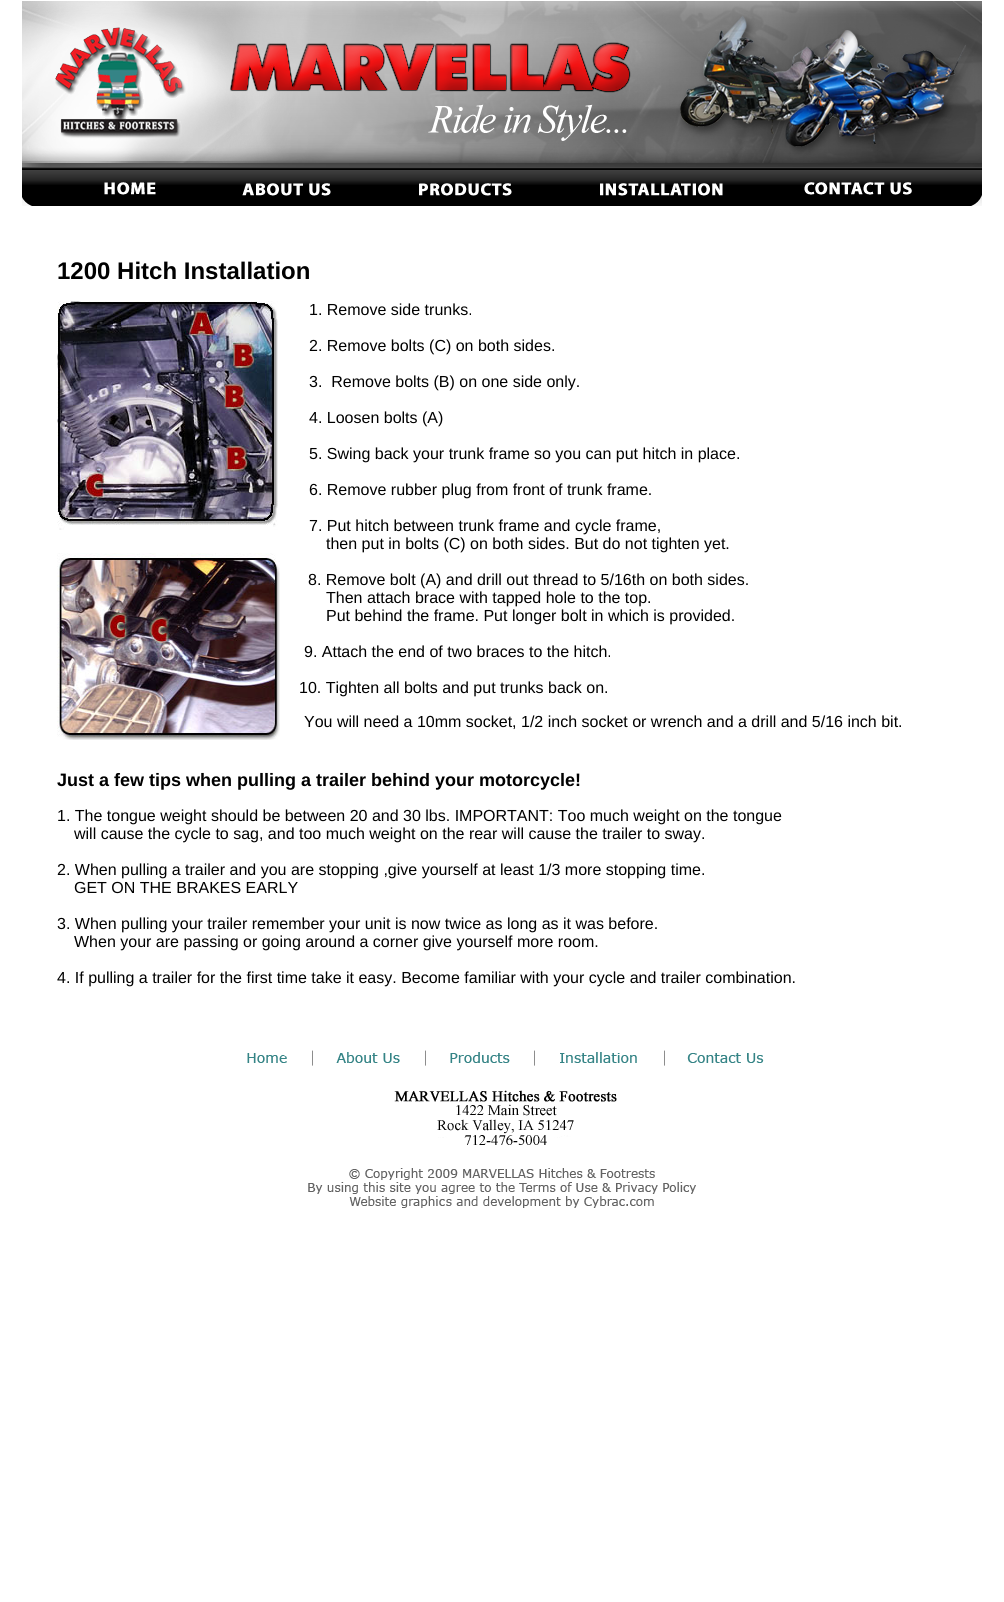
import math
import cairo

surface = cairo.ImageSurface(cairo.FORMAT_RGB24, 1004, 1602)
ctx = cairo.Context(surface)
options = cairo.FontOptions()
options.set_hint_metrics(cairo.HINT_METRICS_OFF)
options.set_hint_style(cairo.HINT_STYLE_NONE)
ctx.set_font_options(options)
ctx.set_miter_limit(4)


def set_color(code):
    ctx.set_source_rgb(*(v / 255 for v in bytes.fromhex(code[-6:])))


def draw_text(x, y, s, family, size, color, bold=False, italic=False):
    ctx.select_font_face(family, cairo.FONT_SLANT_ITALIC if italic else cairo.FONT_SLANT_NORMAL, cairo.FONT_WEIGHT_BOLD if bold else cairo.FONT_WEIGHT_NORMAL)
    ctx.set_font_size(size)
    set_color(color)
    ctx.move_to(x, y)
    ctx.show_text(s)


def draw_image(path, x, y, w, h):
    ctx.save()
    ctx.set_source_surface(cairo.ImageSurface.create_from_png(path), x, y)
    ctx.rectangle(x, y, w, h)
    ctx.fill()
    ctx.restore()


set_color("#ffffff")
ctx.paint()
draw_image("assets/img1.png", 22, 1, 960, 162)
draw_image("assets/img2.png", 22, 163, 183, 43)
draw_image("assets/img3.png", 205, 163, 169, 43)
draw_image("assets/img4.png", 374, 163, 182, 43)
draw_image("assets/img5.png", 556, 163, 203, 43)
draw_image("assets/img6.png", 759, 163, 223, 43)
draw_text(57, 279, "1200 Hitch Installation", "Liberation Sans", 24, "#000000", bold=True)
draw_image("assets/img7.png", 57, 301, 221, 229)
draw_text(309, 315, "1. Remove side trunks.", "Liberation Sans", 16, "#000000")
draw_text(309, 351, "2. Remove bolts (C) on both sides.", "Liberation Sans", 16, "#000000")
draw_text(309, 387, "3.  Remove bolts (B) on one side only.", "Liberation Sans", 16, "#000000")
draw_text(309, 423, "4. Loosen bolts (A)", "Liberation Sans", 16, "#000000")
draw_text(309, 459, "5. Swing back your trunk frame so you can put hitch in place.", "Liberation Sans", 16, "#000000")
draw_text(309, 495, "6. Remove rubber plug from front of trunk frame.", "Liberation Sans", 16, "#000000")
draw_text(309, 531, "7. Put hitch between trunk frame and cycle frame,", "Liberation Sans", 16, "#000000")
draw_text(326, 549, "then put in bolts (C) on both sides. But do not tighten yet.", "Liberation Sans", 16, "#000000")
draw_image("assets/img8.png", 57, 553, 223, 187)
draw_text(308, 585, "8. Remove bolt (A) and drill out thread to 5/16th on both sides.", "Liberation Sans", 16, "#000000")
draw_text(326, 603, "Then attach brace with tapped hole to the top.", "Liberation Sans", 16, "#000000")
draw_text(326, 621, "Put behind the frame. Put longer bolt in which is provided.", "Liberation Sans", 16, "#000000")
draw_text(304, 657, "9. Attach the end of two braces to the hitch.", "Liberation Sans", 16, "#000000")
draw_text(299, 693, "10. Tighten all bolts and put trunks back on.", "Liberation Sans", 16, "#000000")
draw_text(304, 727, "You will need a 10mm socket, 1/2 inch socket or wrench and a drill and 5/16 inch bit.", "Liberation Sans", 16, "#000000")
draw_text(57, 786, "Just a few tips when pulling a trailer behind your motorcycle!", "Liberation Sans", 18, "#000000", bold=True)
draw_text(57, 821, "1. The tongue weight should be between 20 and 30 lbs. IMPORTANT: Too much weight on the tongue", "Liberation Sans", 16, "#000000")
draw_text(74, 839, "will cause the cycle to sag, and too much weight on the rear will cause the trailer to sway.", "Liberation Sans", 16, "#000000")
draw_text(57, 875, "2. When pulling a trailer and you are stopping ,give yourself at least 1/3 more stopping time.", "Liberation Sans", 16, "#000000")
draw_text(74, 893, "GET ON THE BRAKES EARLY", "Liberation Sans", 16, "#000000")
draw_text(57, 929, "3. When pulling your trailer remember your unit is now twice as long as it was before.", "Liberation Sans", 16, "#000000")
draw_text(74, 947, "When your are passing or going around a corner give yourself more room.", "Liberation Sans", 16, "#000000")
draw_text(57, 983, "4. If pulling a trailer for the first time take it easy. Become familiar with your cycle and trailer combination.", "Liberation Sans", 16, "#000000")
draw_image("assets/img9.png", 247, 1053, 40, 10)
draw_image("assets/img10.png", 312, 1050, 88, 16)
draw_image("assets/img11.png", 425, 1050, 85, 16)
draw_image("assets/img12.png", 534, 1050, 103, 16)
draw_image("assets/img13.png", 664, 1050, 100, 16)
draw_image("assets/img14.png", 394, 1090, 223, 55)
draw_image("assets/img15.png", 349, 1168, 306, 12)
draw_image("assets/img16.png", 308, 1182, 388, 12)
draw_image("assets/img17.png", 349, 1196, 305, 12)
surface.write_to_png("output.png")
